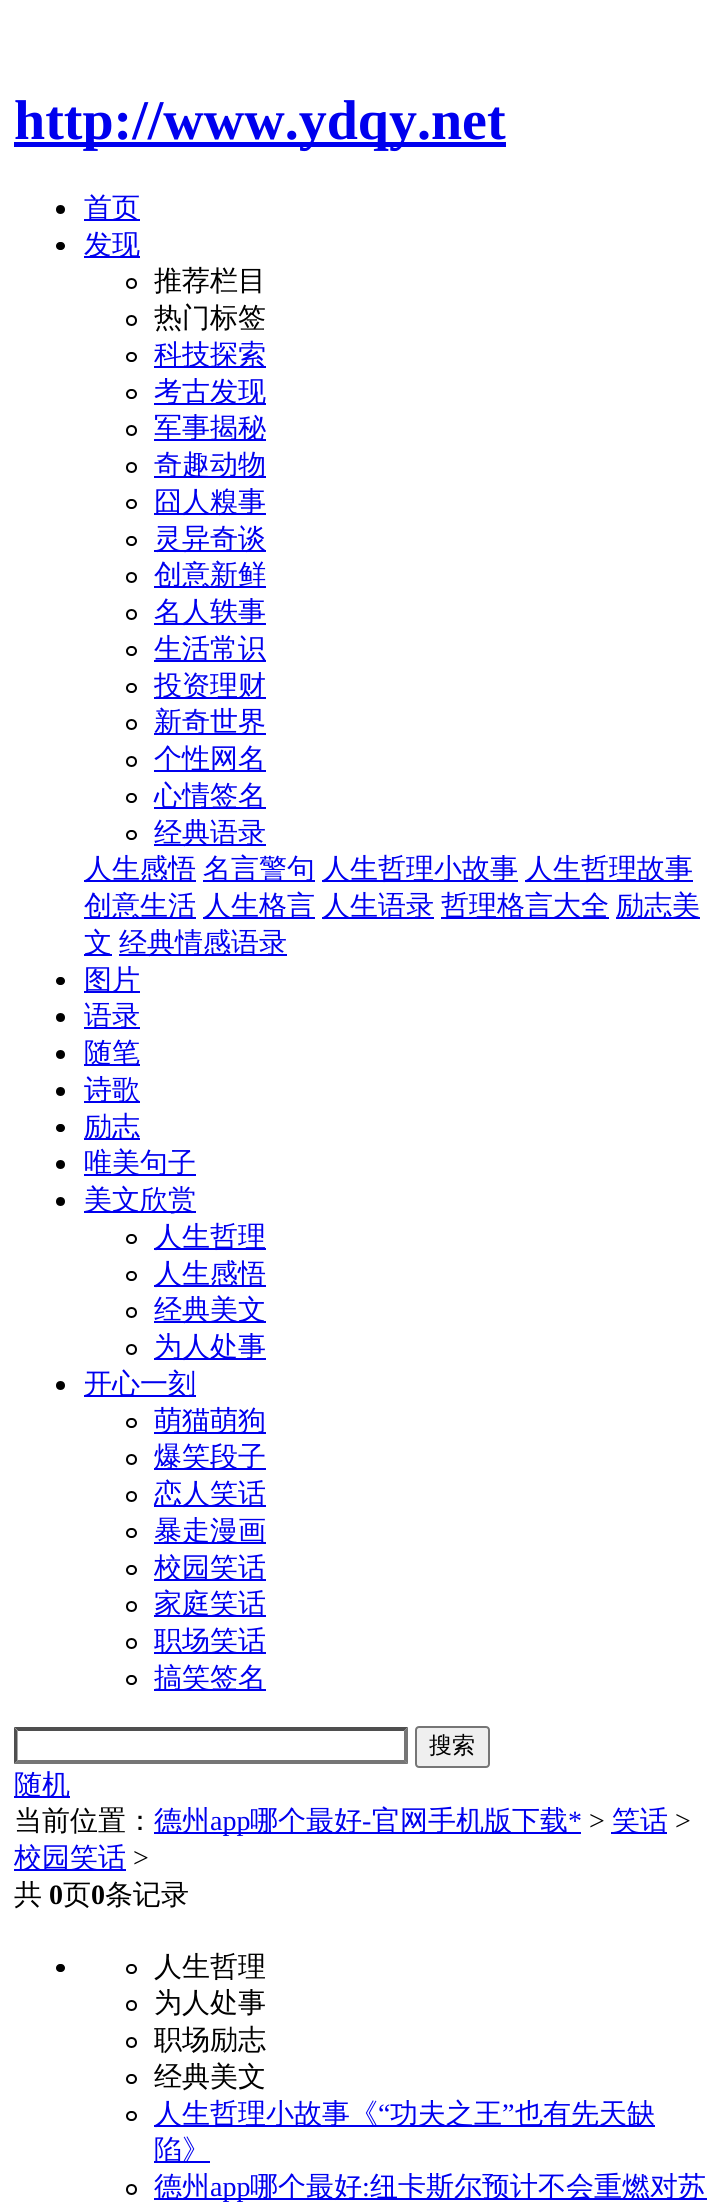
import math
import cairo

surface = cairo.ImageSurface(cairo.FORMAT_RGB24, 723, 2205)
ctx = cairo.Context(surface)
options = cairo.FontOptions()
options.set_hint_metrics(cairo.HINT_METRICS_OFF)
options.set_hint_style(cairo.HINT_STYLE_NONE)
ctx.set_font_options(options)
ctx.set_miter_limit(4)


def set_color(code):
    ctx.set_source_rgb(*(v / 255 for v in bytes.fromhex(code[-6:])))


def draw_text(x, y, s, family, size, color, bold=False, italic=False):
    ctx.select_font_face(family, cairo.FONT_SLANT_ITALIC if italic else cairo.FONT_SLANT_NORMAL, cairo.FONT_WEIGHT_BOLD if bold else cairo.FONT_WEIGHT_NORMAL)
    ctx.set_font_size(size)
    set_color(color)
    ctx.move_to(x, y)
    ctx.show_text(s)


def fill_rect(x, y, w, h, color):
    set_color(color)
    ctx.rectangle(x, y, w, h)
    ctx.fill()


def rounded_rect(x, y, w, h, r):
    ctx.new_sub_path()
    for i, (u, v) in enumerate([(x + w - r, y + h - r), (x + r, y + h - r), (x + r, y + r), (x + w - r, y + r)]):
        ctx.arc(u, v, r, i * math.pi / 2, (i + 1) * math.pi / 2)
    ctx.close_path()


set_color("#ffffff")
ctx.paint()
fill_rect(14, 142, 492, 5, "#0000ee")
draw_text(14, 139, "http://www.ydqy.net", "Liberation Serif", 56, "#0000ee", bold=True)
set_color("#000000")
ctx.new_path()
ctx.arc(60.5, 209.5, 4.5, 0, 2 * math.pi)
ctx.fill()
fill_rect(84, 219, 56, 2, "#0000ee")
draw_text(84, 217, "首页", "WenQuanYi Zen Hei Medium", 28, "#0000ee")
set_color("#000000")
rounded_rect(56, 242, 9, 8, 4)
ctx.fill()
fill_rect(84, 256, 56, 2, "#0000ee")
draw_text(84, 254, "发现", "WenQuanYi Zen Hei Medium", 28, "#0000ee")
ctx.new_path()
ctx.arc(131.5, 283.5, 4.5, 0, 2 * math.pi)
set_color("#000000")
ctx.stroke()
draw_text(154, 290, "推荐栏目", "WenQuanYi Zen Hei Medium", 28, "#000000")
ctx.new_path()
ctx.arc(131.5, 320.5, 4.5, 0, 2 * math.pi)
ctx.stroke()
draw_text(154, 327, "热门标签", "WenQuanYi Zen Hei Medium", 28, "#000000")
rounded_rect(127, 353, 9, 8, 4)
ctx.stroke()
fill_rect(154, 366, 112, 2, "#0000ee")
draw_text(154, 364, "科技探索", "WenQuanYi Zen Hei Medium", 28, "#0000ee")
rounded_rect(127, 390, 9, 8, 4)
set_color("#000000")
ctx.stroke()
fill_rect(154, 403, 112, 2, "#0000ee")
draw_text(154, 401, "考古发现", "WenQuanYi Zen Hei Medium", 28, "#0000ee")
ctx.new_path()
ctx.arc(131.5, 430.5, 4.5, 0, 2 * math.pi)
set_color("#000000")
ctx.stroke()
fill_rect(154, 439, 112, 2, "#0000ee")
draw_text(154, 437, "军事揭秘", "WenQuanYi Zen Hei Medium", 28, "#0000ee")
ctx.new_path()
ctx.arc(131.5, 467.5, 4.5, 0, 2 * math.pi)
set_color("#000000")
ctx.stroke()
fill_rect(154, 476, 112, 2, "#0000ee")
draw_text(154, 474, "奇趣动物", "WenQuanYi Zen Hei Medium", 28, "#0000ee")
rounded_rect(127, 500, 9, 8, 4)
set_color("#000000")
ctx.stroke()
fill_rect(154, 513, 112, 2, "#0000ee")
draw_text(154, 511, "囧人糗事", "WenQuanYi Zen Hei Medium", 28, "#0000ee")
rounded_rect(127, 537, 9, 8, 4)
set_color("#000000")
ctx.stroke()
fill_rect(154, 550, 112, 2, "#0000ee")
draw_text(154, 548, "灵异奇谈", "WenQuanYi Zen Hei Medium", 28, "#0000ee")
ctx.new_path()
ctx.arc(131.5, 577.5, 4.5, 0, 2 * math.pi)
set_color("#000000")
ctx.stroke()
fill_rect(154, 586, 112, 2, "#0000ee")
draw_text(154, 584, "创意新鲜", "WenQuanYi Zen Hei Medium", 28, "#0000ee")
ctx.new_path()
ctx.arc(131.5, 614.5, 4.5, 0, 2 * math.pi)
set_color("#000000")
ctx.stroke()
fill_rect(154, 623, 112, 2, "#0000ee")
draw_text(154, 621, "名人轶事", "WenQuanYi Zen Hei Medium", 28, "#0000ee")
rounded_rect(127, 647, 9, 8, 4)
set_color("#000000")
ctx.stroke()
fill_rect(154, 660, 112, 2, "#0000ee")
draw_text(154, 658, "生活常识", "WenQuanYi Zen Hei Medium", 28, "#0000ee")
rounded_rect(127, 684, 9, 8, 4)
set_color("#000000")
ctx.stroke()
fill_rect(154, 697, 112, 2, "#0000ee")
draw_text(154, 695, "投资理财", "WenQuanYi Zen Hei Medium", 28, "#0000ee")
ctx.new_path()
ctx.arc(131.5, 724.5, 4.5, 0, 2 * math.pi)
set_color("#000000")
ctx.stroke()
fill_rect(154, 733, 112, 2, "#0000ee")
draw_text(154, 731, "新奇世界", "WenQuanYi Zen Hei Medium", 28, "#0000ee")
ctx.new_path()
ctx.arc(131.5, 761.5, 4.5, 0, 2 * math.pi)
set_color("#000000")
ctx.stroke()
fill_rect(154, 770, 112, 2, "#0000ee")
draw_text(154, 768, "个性网名", "WenQuanYi Zen Hei Medium", 28, "#0000ee")
rounded_rect(127, 794, 9, 8, 4)
set_color("#000000")
ctx.stroke()
fill_rect(154, 807, 112, 2, "#0000ee")
draw_text(154, 805, "心情签名", "WenQuanYi Zen Hei Medium", 28, "#0000ee")
rounded_rect(127, 831, 9, 8, 4)
set_color("#000000")
ctx.stroke()
fill_rect(154, 844, 112, 2, "#0000ee")
draw_text(154, 842, "经典语录", "WenQuanYi Zen Hei Medium", 28, "#0000ee")
fill_rect(84, 880, 112, 2, "#0000ee")
draw_text(84, 878, "人生感悟", "WenQuanYi Zen Hei Medium", 28, "#0000ee")
fill_rect(203, 880, 112, 2, "#0000ee")
draw_text(203, 878, "名言警句", "WenQuanYi Zen Hei Medium", 28, "#0000ee")
fill_rect(322, 880, 196, 2, "#0000ee")
draw_text(322, 878, "人生哲理小故事", "WenQuanYi Zen Hei Medium", 28, "#0000ee")
fill_rect(525, 880, 168, 2, "#0000ee")
draw_text(525, 878, "人生哲理故事", "WenQuanYi Zen Hei Medium", 28, "#0000ee")
fill_rect(84, 917, 112, 2, "#0000ee")
draw_text(84, 915, "创意生活", "WenQuanYi Zen Hei Medium", 28, "#0000ee")
fill_rect(203, 917, 112, 2, "#0000ee")
draw_text(203, 915, "人生格言", "WenQuanYi Zen Hei Medium", 28, "#0000ee")
fill_rect(322, 917, 112, 2, "#0000ee")
draw_text(322, 915, "人生语录", "WenQuanYi Zen Hei Medium", 28, "#0000ee")
fill_rect(441, 917, 168, 2, "#0000ee")
draw_text(441, 915, "哲理格言大全", "WenQuanYi Zen Hei Medium", 28, "#0000ee")
fill_rect(616, 917, 84, 2, "#0000ee")
draw_text(616, 915, "励志美", "WenQuanYi Zen Hei Medium", 28, "#0000ee")
fill_rect(84, 954, 28, 2, "#0000ee")
draw_text(84, 952, "文", "WenQuanYi Zen Hei Medium", 28, "#0000ee")
fill_rect(119, 954, 168, 2, "#0000ee")
draw_text(119, 952, "经典情感语录", "WenQuanYi Zen Hei Medium", 28, "#0000ee")
set_color("#000000")
rounded_rect(56, 977, 9, 8, 4)
ctx.fill()
fill_rect(84, 991, 56, 2, "#0000ee")
draw_text(84, 989, "图片", "WenQuanYi Zen Hei Medium", 28, "#0000ee")
set_color("#000000")
ctx.new_path()
ctx.arc(60.5, 1017.5, 4.5, 0, 2 * math.pi)
ctx.fill()
fill_rect(84, 1027, 56, 2, "#0000ee")
draw_text(84, 1025, "语录", "WenQuanYi Zen Hei Medium", 28, "#0000ee")
set_color("#000000")
ctx.new_path()
ctx.arc(60.5, 1054.5, 4.5, 0, 2 * math.pi)
ctx.fill()
fill_rect(84, 1064, 56, 2, "#0000ee")
draw_text(84, 1062, "随笔", "WenQuanYi Zen Hei Medium", 28, "#0000ee")
set_color("#000000")
ctx.new_path()
ctx.arc(60.5, 1091.5, 4.5, 0, 2 * math.pi)
ctx.fill()
fill_rect(84, 1101, 56, 2, "#0000ee")
draw_text(84, 1099, "诗歌", "WenQuanYi Zen Hei Medium", 28, "#0000ee")
set_color("#000000")
rounded_rect(56, 1124, 9, 8, 4)
ctx.fill()
fill_rect(84, 1138, 56, 2, "#0000ee")
draw_text(84, 1136, "励志", "WenQuanYi Zen Hei Medium", 28, "#0000ee")
set_color("#000000")
ctx.new_path()
ctx.arc(60.5, 1164.5, 4.5, 0, 2 * math.pi)
ctx.fill()
fill_rect(84, 1174, 112, 2, "#0000ee")
draw_text(84, 1172, "唯美句子", "WenQuanYi Zen Hei Medium", 28, "#0000ee")
set_color("#000000")
ctx.new_path()
ctx.arc(60.5, 1201.5, 4.5, 0, 2 * math.pi)
ctx.fill()
fill_rect(84, 1211, 112, 2, "#0000ee")
draw_text(84, 1209, "美文欣赏", "WenQuanYi Zen Hei Medium", 28, "#0000ee")
rounded_rect(127, 1235, 9, 8, 4)
set_color("#000000")
ctx.stroke()
fill_rect(154, 1248, 112, 2, "#0000ee")
draw_text(154, 1246, "人生哲理", "WenQuanYi Zen Hei Medium", 28, "#0000ee")
rounded_rect(127, 1272, 9, 8, 4)
set_color("#000000")
ctx.stroke()
fill_rect(154, 1285, 112, 2, "#0000ee")
draw_text(154, 1283, "人生感悟", "WenQuanYi Zen Hei Medium", 28, "#0000ee")
ctx.new_path()
ctx.arc(131.5, 1312.5, 4.5, 0, 2 * math.pi)
set_color("#000000")
ctx.stroke()
fill_rect(154, 1321, 112, 2, "#0000ee")
draw_text(154, 1319, "经典美文", "WenQuanYi Zen Hei Medium", 28, "#0000ee")
ctx.new_path()
ctx.arc(131.5, 1349.5, 4.5, 0, 2 * math.pi)
set_color("#000000")
ctx.stroke()
fill_rect(154, 1358, 112, 2, "#0000ee")
draw_text(154, 1356, "为人处事", "WenQuanYi Zen Hei Medium", 28, "#0000ee")
set_color("#000000")
ctx.new_path()
ctx.arc(60.5, 1385.5, 4.5, 0, 2 * math.pi)
ctx.fill()
fill_rect(84, 1395, 112, 2, "#0000ee")
draw_text(84, 1393, "开心一刻", "WenQuanYi Zen Hei Medium", 28, "#0000ee")
rounded_rect(127, 1419, 9, 8, 4)
set_color("#000000")
ctx.stroke()
fill_rect(154, 1432, 112, 2, "#0000ee")
draw_text(154, 1430, "萌猫萌狗", "WenQuanYi Zen Hei Medium", 28, "#0000ee")
ctx.new_path()
ctx.arc(131.5, 1459.5, 4.5, 0, 2 * math.pi)
set_color("#000000")
ctx.stroke()
fill_rect(154, 1468, 112, 2, "#0000ee")
draw_text(154, 1466, "爆笑段子", "WenQuanYi Zen Hei Medium", 28, "#0000ee")
ctx.new_path()
ctx.arc(131.5, 1496.5, 4.5, 0, 2 * math.pi)
set_color("#000000")
ctx.stroke()
fill_rect(154, 1505, 112, 2, "#0000ee")
draw_text(154, 1503, "恋人笑话", "WenQuanYi Zen Hei Medium", 28, "#0000ee")
rounded_rect(127, 1529, 9, 8, 4)
set_color("#000000")
ctx.stroke()
fill_rect(154, 1542, 112, 2, "#0000ee")
draw_text(154, 1540, "暴走漫画", "WenQuanYi Zen Hei Medium", 28, "#0000ee")
rounded_rect(127, 1566, 9, 8, 4)
set_color("#000000")
ctx.stroke()
fill_rect(154, 1579, 112, 2, "#0000ee")
draw_text(154, 1577, "校园笑话", "WenQuanYi Zen Hei Medium", 28, "#0000ee")
ctx.new_path()
ctx.arc(131.5, 1606.5, 4.5, 0, 2 * math.pi)
set_color("#000000")
ctx.stroke()
fill_rect(154, 1615, 112, 2, "#0000ee")
draw_text(154, 1613, "家庭笑话", "WenQuanYi Zen Hei Medium", 28, "#0000ee")
ctx.new_path()
ctx.arc(131.5, 1643.5, 4.5, 0, 2 * math.pi)
set_color("#000000")
ctx.stroke()
fill_rect(154, 1652, 112, 2, "#0000ee")
draw_text(154, 1650, "职场笑话", "WenQuanYi Zen Hei Medium", 28, "#0000ee")
rounded_rect(127, 1676, 9, 8, 4)
set_color("#000000")
ctx.stroke()
fill_rect(154, 1689, 112, 2, "#0000ee")
draw_text(154, 1687, "搞笑签名", "WenQuanYi Zen Hei Medium", 28, "#0000ee")
set_color("#4f4f4f")
ctx.new_path()
ctx.move_to(14, 1727)
ctx.line_to(408, 1727)
ctx.line_to(404, 1731)
ctx.line_to(18, 1731)
ctx.close_path()
ctx.fill()
set_color("#767676")
ctx.new_path()
ctx.move_to(408, 1727)
ctx.line_to(408, 1764)
ctx.line_to(404, 1760.5)
ctx.line_to(404, 1731)
ctx.close_path()
ctx.fill()
ctx.new_path()
ctx.move_to(408, 1764)
ctx.line_to(14, 1764)
ctx.line_to(18, 1760)
ctx.line_to(404, 1760)
ctx.close_path()
ctx.fill()
set_color("#4f4f4f")
ctx.new_path()
ctx.move_to(14, 1764)
ctx.line_to(14, 1727)
ctx.line_to(17.5, 1731)
ctx.line_to(17.5, 1760.5)
ctx.close_path()
ctx.fill()
set_color("#efefef")
rounded_rect(416, 1727, 73, 40, 3)
ctx.fill_preserve()
set_color("#767676")
ctx.stroke()
draw_text(429, 1753, "搜索", "WenQuanYi Zen Hei Medium", 23, "#000000")
fill_rect(14, 1796, 56, 2, "#0000ee")
draw_text(14, 1794, "随机", "WenQuanYi Zen Hei Medium", 28, "#0000ee")
draw_text(14, 1830, "当前位置：", "WenQuanYi Zen Hei Medium", 28, "#000000")
fill_rect(154, 1832, 427, 2, "#0000ee")
draw_text(154, 1830, "德州", "WenQuanYi Zen Hei Medium", 28, "#0000ee")
draw_text(210, 1830, "app", "Liberation Serif", 28, "#0000ee")
draw_text(250, 1830, "哪个最好", "WenQuanYi Zen Hei Medium", 28, "#0000ee")
draw_text(362, 1830, "-", "Liberation Serif", 28, "#0000ee")
draw_text(372, 1830, "官网手机版下载", "WenQuanYi Zen Hei Medium", 28, "#0000ee")
draw_text(568, 1830, "*", "Liberation Serif", 28, "#0000ee")
draw_text(589, 1830, ">", "Liberation Serif", 28, "#000000")
fill_rect(611, 1832, 56, 2, "#0000ee")
draw_text(612, 1830, "笑话", "WenQuanYi Zen Hei Medium", 28, "#0000ee")
draw_text(675, 1830, ">", "Liberation Serif", 28, "#000000")
fill_rect(14, 1869, 112, 2, "#0000ee")
draw_text(14, 1867, "校园笑话", "WenQuanYi Zen Hei Medium", 28, "#0000ee")
draw_text(133, 1867, ">", "Liberation Serif", 28, "#000000")
draw_text(14, 1904, "共", "WenQuanYi Zen Hei Medium", 28, "#000000")
draw_text(49, 1904, "0", "Liberation Serif", 28, "#000000", bold=True)
draw_text(63, 1904, "页", "WenQuanYi Zen Hei Medium", 28, "#000000")
draw_text(91, 1904, "0", "Liberation Serif", 28, "#000000", bold=True)
draw_text(105, 1904, "条记录", "WenQuanYi Zen Hei Medium", 28, "#000000")
rounded_rect(56, 1964, 9, 8, 4)
ctx.fill()
rounded_rect(127, 1965, 9, 8, 4)
ctx.stroke()
draw_text(154, 1976, "人生哲理", "WenQuanYi Zen Hei Medium", 28, "#000000")
ctx.new_path()
ctx.arc(131.5, 2005.5, 4.5, 0, 2 * math.pi)
ctx.stroke()
draw_text(154, 2012, "为人处事", "WenQuanYi Zen Hei Medium", 28, "#000000")
ctx.new_path()
ctx.arc(131.5, 2042.5, 4.5, 0, 2 * math.pi)
ctx.stroke()
draw_text(154, 2049, "职场励志", "WenQuanYi Zen Hei Medium", 28, "#000000")
rounded_rect(127, 2075, 9, 8, 4)
ctx.stroke()
draw_text(154, 2086, "经典美文", "WenQuanYi Zen Hei Medium", 28, "#000000")
fill_rect(154, 2125, 501, 2, "#0000ee")
draw_text(154, 2123, "人生哲理小故事《", "WenQuanYi Zen Hei Medium", 28, "#0000ee")
draw_text(378, 2123, "“", "Liberation Serif", 28, "#0000ee")
draw_text(390, 2123, "功夫之王", "WenQuanYi Zen Hei Medium", 28, "#0000ee")
draw_text(502, 2123, "”", "Liberation Serif", 28, "#0000ee")
draw_text(515, 2123, "也有先天缺", "WenQuanYi Zen Hei Medium", 28, "#0000ee")
rounded_rect(127, 2112, 9, 8, 4)
set_color("#000000")
ctx.stroke()
fill_rect(154, 2161, 56, 2, "#0000ee")
draw_text(154, 2159, "陷》", "WenQuanYi Zen Hei Medium", 28, "#0000ee")
ctx.new_path()
ctx.arc(131.5, 2189.5, 4.5, 0, 2 * math.pi)
set_color("#000000")
ctx.stroke()
fill_rect(154, 2198, 553, 2, "#0000ee")
draw_text(154, 2196, "德州", "WenQuanYi Zen Hei Medium", 28, "#0000ee")
draw_text(210, 2196, "app", "Liberation Serif", 28, "#0000ee")
draw_text(250, 2196, "哪个最好", "WenQuanYi Zen Hei Medium", 28, "#0000ee")
draw_text(362, 2196, ":", "Liberation Serif", 28, "#0000ee")
draw_text(370, 2196, "纽卡斯尔预计不会重燃对苏", "WenQuanYi Zen Hei Medium", 28, "#0000ee")
surface.write_to_png("output.png")
